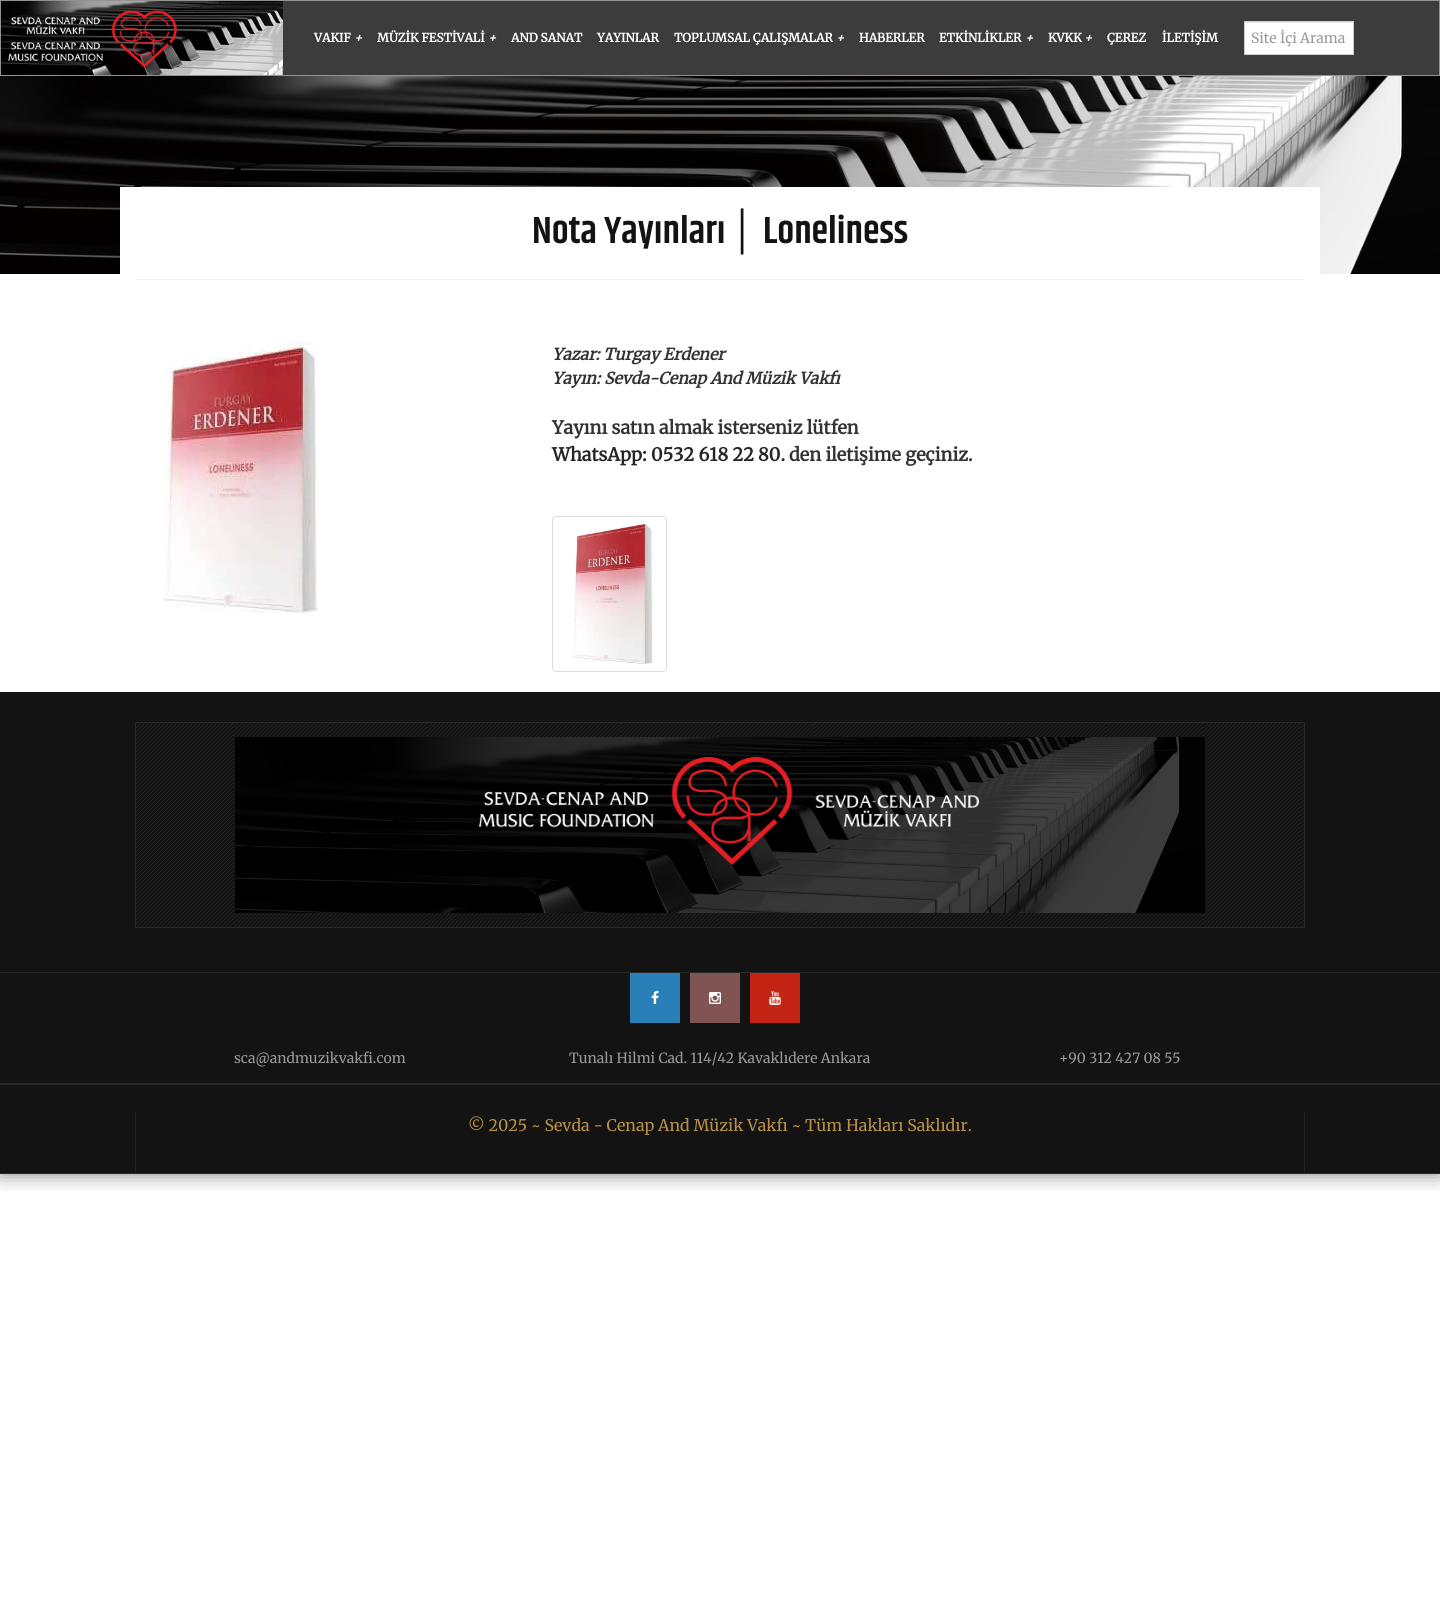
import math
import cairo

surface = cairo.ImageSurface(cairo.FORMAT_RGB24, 1440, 1597)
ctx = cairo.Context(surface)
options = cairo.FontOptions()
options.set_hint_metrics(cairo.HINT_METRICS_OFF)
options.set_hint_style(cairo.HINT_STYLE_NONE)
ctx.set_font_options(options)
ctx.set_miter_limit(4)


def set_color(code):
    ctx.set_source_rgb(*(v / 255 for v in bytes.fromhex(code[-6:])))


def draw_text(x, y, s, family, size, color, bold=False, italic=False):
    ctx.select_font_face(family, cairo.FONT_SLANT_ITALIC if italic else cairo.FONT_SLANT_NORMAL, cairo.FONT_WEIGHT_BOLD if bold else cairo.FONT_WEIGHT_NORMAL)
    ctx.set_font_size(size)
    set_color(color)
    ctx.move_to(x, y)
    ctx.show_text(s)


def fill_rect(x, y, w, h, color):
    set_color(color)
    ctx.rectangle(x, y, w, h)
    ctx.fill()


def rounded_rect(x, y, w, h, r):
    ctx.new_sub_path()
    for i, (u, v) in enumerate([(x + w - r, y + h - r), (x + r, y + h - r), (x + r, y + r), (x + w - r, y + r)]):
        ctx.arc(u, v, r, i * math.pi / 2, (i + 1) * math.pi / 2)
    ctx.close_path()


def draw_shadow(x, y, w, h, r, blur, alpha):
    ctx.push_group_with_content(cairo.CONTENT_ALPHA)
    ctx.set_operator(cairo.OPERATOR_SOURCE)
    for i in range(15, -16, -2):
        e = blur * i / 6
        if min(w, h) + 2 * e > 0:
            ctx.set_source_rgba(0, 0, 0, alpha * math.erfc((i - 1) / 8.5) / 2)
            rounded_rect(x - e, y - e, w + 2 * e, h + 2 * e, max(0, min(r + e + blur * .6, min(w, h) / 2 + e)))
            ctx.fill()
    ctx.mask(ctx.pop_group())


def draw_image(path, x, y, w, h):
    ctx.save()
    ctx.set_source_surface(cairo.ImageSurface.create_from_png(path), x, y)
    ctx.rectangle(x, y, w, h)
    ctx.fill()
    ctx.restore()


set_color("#ffffff")
ctx.paint()
ctx.save()
ctx.rectangle(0, 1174, 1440, 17)
ctx.clip()
set_color("#000000")
draw_shadow(0, 0, 1440, 1174, 0, 10, 0.5)
ctx.restore()
fill_rect(283, 1, 1156, 74, "#3c3c3c")
ctx.rectangle(0.5, 0.5, 1439, 75)
set_color("#929292")
ctx.set_line_width(1)
ctx.stroke()
draw_image("assets/img1.png", 1, 1, 282, 74)
draw_text(314, 42, "VAKIF", "Merriweather", 12, "#ffffff", bold=True)
draw_text(354, 42, "+", "Merriweather", 12, "#ffffff", bold=True, italic=True)
draw_text(377, 42, "MÜZİK FESTİVALİ", "Merriweather", 12, "#ffffff", bold=True)
draw_text(488, 42, "+", "Merriweather", 12, "#ffffff", bold=True, italic=True)
draw_text(511, 42, "AND SANAT", "Merriweather", 12, "#ffffff", bold=True)
draw_text(597, 42, "YAYINLAR", "Merriweather", 12, "#ffffff", bold=True)
draw_text(674, 42, "TOPLUMSAL ÇALIŞMALAR", "Merriweather", 12, "#ffffff", bold=True)
draw_text(836, 42, "+", "Merriweather", 12, "#ffffff", bold=True, italic=True)
draw_text(859, 42, "HABERLER", "Merriweather", 12, "#ffffff", bold=True)
draw_text(939, 42, "ETKİNLİKLER", "Merriweather", 12, "#ffffff", bold=True)
draw_text(1025, 42, "+", "Merriweather", 12, "#ffffff", bold=True, italic=True)
draw_text(1048, 42, "KVKK", "Merriweather", 12, "#ffffff", bold=True)
draw_text(1084, 42, "+", "Merriweather", 12, "#ffffff", bold=True, italic=True)
draw_text(1107, 42, "ÇEREZ", "Merriweather", 12, "#ffffff", bold=True)
draw_text(1162, 42, "İLETİŞİM", "Merriweather", 12, "#ffffff", bold=True)
fill_rect(1245, 23, 108, 31, "#ffffff")
fill_rect(1245, 22, 108, 1, "#ececec")
ctx.rectangle(1244.5, 21.5, 109, 33)
set_color("#cccccc")
ctx.stroke()
draw_text(1251, 43, "Site İçi Arama", "Merriweather Light", 14, "#999999")
draw_image("assets/img2.png", 0, 76, 1440, 198)
fill_rect(120, 187, 1200, 87, "#ffffff")
fill_rect(135, 279, 1170, 1, "#f0f0f0")
draw_text(532, 243, "Nota Yayınları", "Khand SemiBold", 38, "#131313")
draw_text(732, 243, "│", "Liberation Sans", 38, "#131313", bold=True)
draw_text(763, 243, "Loneliness", "Khand SemiBold", 38, "#131313")
draw_image("assets/img3.png", 163, 342, 156, 272)
draw_text(552, 360, "Yazar: Turgay Erdener", "Merriweather", 16, "#333333", bold=True, italic=True)
draw_text(552, 384, "Yayın: Sevda-Cenap And Müzik Vakfı", "Merriweather", 16, "#333333", bold=True, italic=True)
draw_text(552, 434, "Yayını satın almak isterseniz lütfen", "Merriweather", 18, "#333333", bold=True)
draw_text(552, 461, "WhatsApp: 0532 618 22 80.", "Merriweather", 18, "#262626", bold=True)
draw_text(789, 461, "den iletişime geçiniz.", "Merriweather", 18, "#333333", bold=True)
rounded_rect(552.5, 516.5, 114, 155, 3.5)
set_color("#dddddd")
ctx.stroke()
draw_image("assets/img4.png", 572, 521, 82, 143)
fill_rect(0, 692, 1440, 481, "#131313")
draw_image("assets/img5.png", 136, 723, 1168, 204)
ctx.rectangle(135.5, 722.5, 1169, 205)
set_color("#282828")
ctx.stroke()
draw_image("assets/img6.png", 235, 737, 970, 176)
draw_image("assets/img7.png", 479, 757, 500, 108)
fill_rect(0, 972, 1440, 1, "#282828")
fill_rect(0, 1083, 1440, 2, "#282828")
fill_rect(630, 973, 50, 50, "#2980b9")
draw_image("assets/img8.png", 651, 991, 8, 13)
fill_rect(690, 973, 50, 50, "#815454")
draw_image("assets/img9.png", 709, 992, 12, 12)
fill_rect(750, 973, 50, 50, "#c32414")
draw_image("assets/img10.png", 769, 991, 12, 14)
draw_text(234, 1063, "sca@andmuzikvakfi.com", "Merriweather Light", 14, "#999999")
draw_text(569, 1063, "Tunalı Hilmi Cad. 114/42 Kavaklıdere Ankara", "Merriweather Light", 14, "#999999")
draw_text(1059, 1063, "+90 312 427 08 55", "Merriweather Light", 14, "#999999")
fill_rect(0, 1173, 1440, 1, "#282828")
set_color("#222222")
ctx.new_path()
ctx.move_to(1305, 1110)
ctx.line_to(1305, 1173)
ctx.line_to(1304, 1173)
ctx.line_to(1304, 1113)
ctx.close_path()
ctx.fill()
ctx.new_path()
ctx.move_to(135, 1173)
ctx.line_to(135, 1110)
ctx.line_to(136, 1113)
ctx.line_to(136, 1173)
ctx.close_path()
ctx.fill()
draw_text(468, 1131, "© 2025 ~ Sevda - Cenap And Müzik Vakfı ~ Tüm Hakları Saklıdır.", "Merriweather Light", 16, "#b89147")
surface.write_to_png("output.png")
